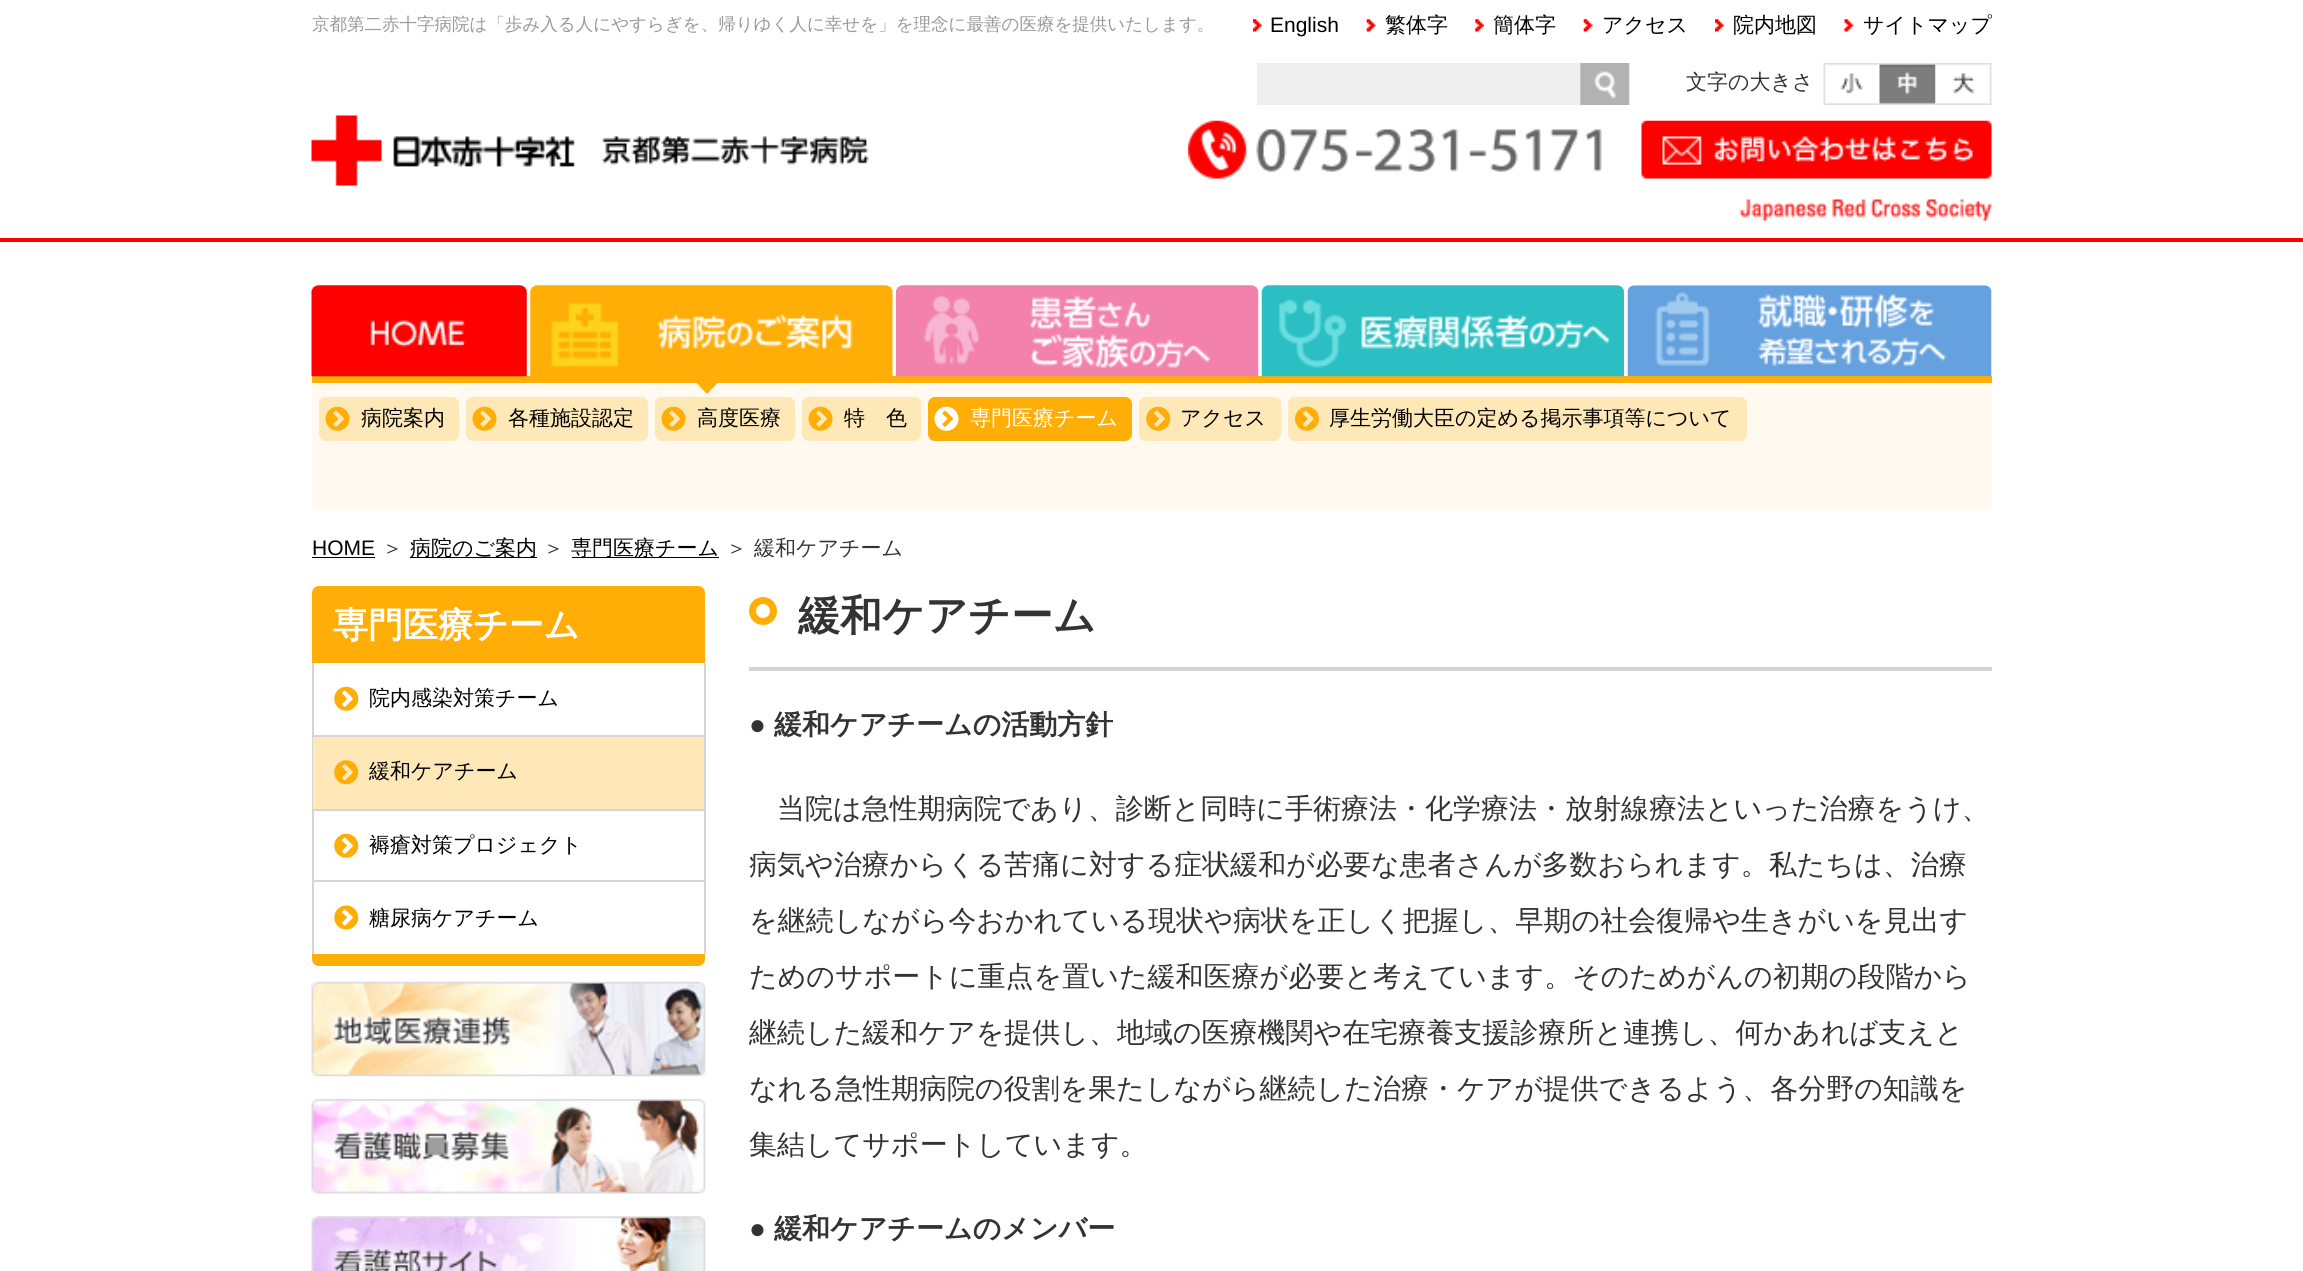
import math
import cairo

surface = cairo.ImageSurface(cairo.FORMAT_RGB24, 2303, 1271)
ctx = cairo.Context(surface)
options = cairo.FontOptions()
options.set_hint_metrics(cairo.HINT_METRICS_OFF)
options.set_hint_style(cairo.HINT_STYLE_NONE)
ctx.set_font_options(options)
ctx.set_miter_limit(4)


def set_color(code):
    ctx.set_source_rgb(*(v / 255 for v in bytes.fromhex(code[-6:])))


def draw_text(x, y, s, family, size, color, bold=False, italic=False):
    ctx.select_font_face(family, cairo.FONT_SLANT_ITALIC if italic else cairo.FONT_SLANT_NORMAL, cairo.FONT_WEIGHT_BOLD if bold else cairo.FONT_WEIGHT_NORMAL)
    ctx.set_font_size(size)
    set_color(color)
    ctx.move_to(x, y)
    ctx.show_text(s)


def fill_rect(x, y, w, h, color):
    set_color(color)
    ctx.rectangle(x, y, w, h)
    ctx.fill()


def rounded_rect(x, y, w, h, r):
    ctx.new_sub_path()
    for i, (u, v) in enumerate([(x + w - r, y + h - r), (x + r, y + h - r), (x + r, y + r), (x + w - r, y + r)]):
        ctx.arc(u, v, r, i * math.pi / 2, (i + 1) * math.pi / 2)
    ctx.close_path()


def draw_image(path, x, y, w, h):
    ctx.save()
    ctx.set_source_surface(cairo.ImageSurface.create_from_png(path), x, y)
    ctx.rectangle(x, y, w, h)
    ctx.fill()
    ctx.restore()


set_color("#ffffff")
ctx.paint()
fill_rect(0, 238, 2303, 4, "#ff0000")
draw_text(312, 30, "京都第二赤十字病院は「歩み入る人にやすらぎを、帰りゆく人に幸せを」を理念に最善の医療を提供いたします。", "WenQuanYi Zen Hei Medium", 17.5, "#999999")
draw_image("assets/img1.png", 1253, 19, 9, 13)
draw_text(1270, 32, "English", "Liberation Sans", 21, "#000000")
draw_image("assets/img2.png", 1366, 19, 10, 13)
draw_text(1385, 32, "繁体字", "WenQuanYi Zen Hei Medium", 21, "#000000")
draw_image("assets/img3.png", 1475, 19, 9, 13)
draw_text(1493, 32, "簡体字", "WenQuanYi Zen Hei Medium", 21, "#000000")
draw_image("assets/img2.png", 1583, 19, 10, 13)
draw_text(1602, 32, "アクセス", "WenQuanYi Zen Hei Medium", 21, "#000000")
draw_image("assets/img4.png", 1715, 19, 9, 13)
draw_text(1733, 32, "院内地図", "WenQuanYi Zen Hei Medium", 21, "#000000")
draw_image("assets/img5.png", 1844, 19, 10, 13)
draw_text(1863, 32, "サイトマップ", "WenQuanYi Zen Hei Medium", 21, "#000000")
fill_rect(1257, 63, 323, 42, "#efefef")
draw_image("assets/img6.png", 1580, 63, 50, 42)
draw_text(1686, 89, "文字の大きさ", "WenQuanYi Zen Hei Medium", 21, "#333333")
draw_image("assets/img7.png", 1823, 63, 57, 42)
draw_image("assets/img8.png", 1879, 63, 57, 42)
draw_image("assets/img9.png", 1935, 63, 57, 42)
draw_image("assets/img10.png", 311, 115, 558, 71)
draw_image("assets/img11.png", 1188, 120, 414, 59)
draw_image("assets/img12.png", 1641, 120, 351, 59)
draw_image("assets/img13.png", 1739, 199, 253, 22)
fill_rect(312, 383, 1680, 126, "#fff9ef")
fill_rect(312, 376, 1680, 7, "#ffae07")
draw_image("assets/img14.png", 311, 285, 216, 92)
ctx.new_path()
ctx.move_to(696.5, 383)
ctx.line_to(717.5, 383)
ctx.line_to(707, 394)
ctx.close_path()
ctx.fill()
draw_image("assets/img15.png", 896, 285, 363, 92)
draw_image("assets/img16.png", 1261, 285, 364, 92)
draw_image("assets/img17.png", 1627, 285, 365, 92)
draw_image("assets/img18.png", 530, 285, 363, 91)
set_color("#fee8b7")
rounded_rect(319, 397, 140, 44, 7)
ctx.fill()
draw_image("assets/img19.png", 325, 406, 25, 25)
draw_text(361, 425, "病院案内", "WenQuanYi Zen Hei Medium", 21, "#000000")
set_color("#fee8b7")
rounded_rect(466, 397, 182, 44, 7)
ctx.fill()
draw_image("assets/img19.png", 472, 406, 25, 25)
draw_text(508, 425, "各種施設認定", "WenQuanYi Zen Hei Medium", 21, "#000000")
set_color("#fee8b7")
rounded_rect(655, 397, 140, 44, 7)
ctx.fill()
draw_image("assets/img19.png", 661, 406, 25, 25)
draw_text(697, 425, "高度医療", "WenQuanYi Zen Hei Medium", 21, "#000000")
set_color("#fee8b7")
rounded_rect(802, 397, 119, 44, 7)
ctx.fill()
draw_image("assets/img19.png", 808, 406, 25, 25)
draw_text(844, 425, "特　色", "WenQuanYi Zen Hei Medium", 21, "#000000")
set_color("#ffae07")
rounded_rect(928, 397, 204, 44, 7)
ctx.fill()
draw_image("assets/img20.png", 934, 406, 25, 25)
draw_text(970, 425, "専門医療チーム", "WenQuanYi Zen Hei Medium", 21, "#ffffff")
set_color("#fee8b7")
rounded_rect(1139, 397, 142, 44, 7)
ctx.fill()
draw_image("assets/img21.png", 1146, 406, 25, 25)
draw_text(1180, 425, "アクセス", "WenQuanYi Zen Hei Medium", 21, "#000000")
set_color("#fee8b7")
rounded_rect(1288, 397, 459, 44, 7)
ctx.fill()
draw_image("assets/img22.png", 1295, 406, 24, 25)
draw_text(1329, 425, "厚生労働大臣の定める掲示事項等について", "WenQuanYi Zen Hei Medium", 21, "#000000")
draw_text(312, 555, "HOME", "Liberation Sans", 21, "#000000")
fill_rect(312, 557, 63, 1, "#000000")
draw_text(382, 555, "＞", "WenQuanYi Zen Hei Medium", 21, "#333333")
fill_rect(410, 557, 127, 1, "#000000")
draw_text(410, 555, "病院のご案内", "WenQuanYi Zen Hei Medium", 21, "#000000")
draw_text(543, 555, "＞", "WenQuanYi Zen Hei Medium", 21, "#333333")
fill_rect(572, 557, 147, 1, "#000000")
draw_text(571, 555, "専門医療チーム", "WenQuanYi Zen Hei Medium", 21, "#000000")
draw_text(726, 555, "＞", "WenQuanYi Zen Hei Medium", 21, "#333333")
draw_text(754, 555, "緩和ケアチーム", "WenQuanYi Zen Hei Medium", 21, "#333333")
set_color("#ffae07")
ctx.new_path()
ctx.move_to(319, 586)
ctx.line_to(698, 586)
ctx.curve_to(702, 586, 705, 589, 705, 593)
ctx.line_to(705, 663)
ctx.line_to(312, 663)
ctx.line_to(312, 593)
ctx.curve_to(312, 589, 315, 586, 319, 586)
ctx.close_path()
ctx.fill()
draw_text(333, 637, "専門医療チーム", "WenQuanYi Zen Hei", 35, "#ffffff", bold=True)
fill_rect(704, 663, 2, 291, "#d5d5d5")
fill_rect(312, 663, 2, 291, "#d5d5d5")
draw_image("assets/img23.png", 334, 686, 25, 25)
draw_text(369, 705, "院内感染対策チーム", "WenQuanYi Zen Hei Medium", 21, "#000000")
fill_rect(313, 737, 391, 72, "#fee8b7")
fill_rect(313, 735, 391, 2, "#d5d5d5")
draw_image("assets/img24.png", 334, 760, 25, 25)
draw_text(369, 778, "緩和ケアチーム", "WenQuanYi Zen Hei Medium", 21, "#000000")
fill_rect(313, 809, 391, 2, "#d5d5d5")
draw_image("assets/img23.png", 334, 833, 25, 25)
draw_text(369, 852, "褥瘡対策プロジェクト", "WenQuanYi Zen Hei Medium", 21, "#000000")
fill_rect(313, 880, 391, 2, "#d5d5d5")
draw_image("assets/img25.png", 334, 905, 25, 25)
draw_text(369, 925, "糖尿病ケアチーム", "WenQuanYi Zen Hei Medium", 21, "#000000")
set_color("#ffae07")
ctx.new_path()
ctx.move_to(313, 955)
ctx.line_to(704, 955)
ctx.line_to(704, 959)
ctx.curve_to(704, 962.5, 701.5, 965, 698, 965)
ctx.line_to(319, 965)
ctx.curve_to(315.5, 965, 313, 962.5, 313, 959)
ctx.close_path()
ctx.fill_preserve()
ctx.stroke()
draw_image("assets/img26.png", 311, 981, 395, 96)
draw_image("assets/img27.png", 311, 1099, 395, 95)
draw_image("assets/img28.png", 311, 1216, 395, 55)
fill_rect(749, 667, 1243, 4, "#d5d5d5")
ctx.arc(763, 611, 10.5, 0, 2 * math.pi)
set_color("#ffae07")
ctx.set_line_width(7)
ctx.stroke()
draw_text(798, 630, "緩和ケアチーム", "WenQuanYi Zen Hei", 42, "#333333", bold=True)
draw_text(749, 734, "●", "Liberation Sans", 28, "#333333", bold=True)
draw_text(774, 734, "緩和ケアチームの活動方針", "WenQuanYi Zen Hei", 28, "#333333", bold=True)
draw_text(777, 818, "当院は急性期病院であり、診断と同時に手術療法・化学療法・放射線療法といった治療をうけ、", "WenQuanYi Zen Hei Medium", 28, "#333333")
draw_text(749, 874, "病気や治療からくる苦痛に対する症状緩和が必要な患者さんが多数おられます。私たちは、治療", "WenQuanYi Zen Hei Medium", 28, "#333333")
draw_text(749, 930, "を継続しながら今おかれている現状や病状を正しく把握し、早期の社会復帰や生きがいを見出す", "WenQuanYi Zen Hei Medium", 28, "#333333")
draw_text(749, 986, "ためのサポートに重点を置いた緩和医療が必要と考えています。そのためがんの初期の段階から", "WenQuanYi Zen Hei Medium", 28, "#333333")
draw_text(749, 1042, "継続した緩和ケアを提供し、地域の医療機関や在宅療養支援診療所と連携し、何かあれば支えと", "WenQuanYi Zen Hei Medium", 28, "#333333")
draw_text(749, 1098, "なれる急性期病院の役割を果たしながら継続した治療・ケアが提供できるよう、各分野の知識を", "WenQuanYi Zen Hei Medium", 28, "#333333")
draw_text(749, 1154, "集結してサポートしています。", "WenQuanYi Zen Hei Medium", 28, "#333333")
draw_text(749, 1238, "●", "Liberation Sans", 28, "#333333")
draw_text(774, 1238, "緩和ケアチームのメンバー", "WenQuanYi Zen Hei", 28, "#333333", bold=True)
surface.write_to_png("output.png")
